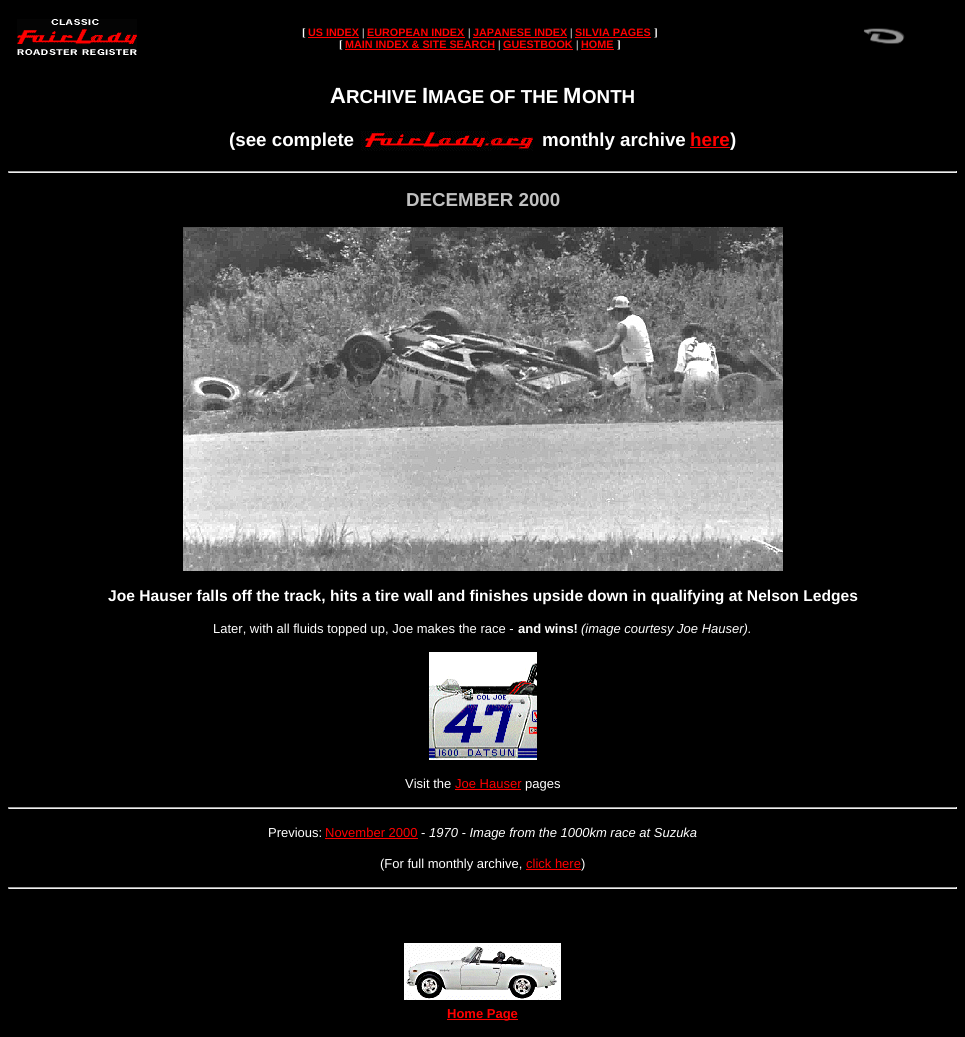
import math
import cairo

surface = cairo.ImageSurface(cairo.FORMAT_RGB24, 965, 1037)
ctx = cairo.Context(surface)
options = cairo.FontOptions()
options.set_hint_metrics(cairo.HINT_METRICS_OFF)
options.set_hint_style(cairo.HINT_STYLE_NONE)
ctx.set_font_options(options)
ctx.set_miter_limit(4)


def set_color(code):
    ctx.set_source_rgb(*(v / 255 for v in bytes.fromhex(code[-6:])))


def draw_text(x, y, s, family, size, color, bold=False, italic=False):
    ctx.select_font_face(family, cairo.FONT_SLANT_ITALIC if italic else cairo.FONT_SLANT_NORMAL, cairo.FONT_WEIGHT_BOLD if bold else cairo.FONT_WEIGHT_NORMAL)
    ctx.set_font_size(size)
    set_color(color)
    ctx.move_to(x, y)
    ctx.show_text(s)


def fill_rect(x, y, w, h, color):
    set_color(color)
    ctx.rectangle(x, y, w, h)
    ctx.fill()


def draw_image(path, x, y, w, h):
    ctx.save()
    ctx.set_source_surface(cairo.ImageSurface.create_from_png(path), x, y)
    ctx.rectangle(x, y, w, h)
    ctx.fill()
    ctx.restore()


set_color("#000000")
ctx.paint()
draw_image("assets/img1.png", 17, 19, 120, 36)
draw_text(302, 36, "[", "Liberation Serif", 11, "#ffffff", bold=True)
draw_text(308, 36, "US INDEX", "Liberation Sans", 10.8, "#ff0000", bold=True)
fill_rect(308, 37, 51, 1, "#ff0000")
draw_text(362, 36, "|", "Liberation Serif", 11, "#ffffff", bold=True)
draw_text(367, 36, "EUROPEAN INDEX", "Liberation Sans", 10.8, "#ff0000", bold=True)
fill_rect(367, 37, 98, 1, "#ff0000")
draw_text(468, 36, "|", "Liberation Serif", 11, "#ffffff", bold=True)
draw_text(473, 36, "JAPANESE INDEX", "Liberation Sans", 10.8, "#ff0000", bold=True)
fill_rect(473, 37, 94, 1, "#ff0000")
draw_text(570, 36, "|", "Liberation Serif", 11, "#ffffff", bold=True)
draw_text(575, 36, "SILVIA PAGES", "Liberation Sans", 10.8, "#ff0000", bold=True)
fill_rect(575, 37, 76, 1, "#ff0000")
draw_text(654, 36, "]", "Liberation Serif", 11, "#ffffff", bold=True)
draw_text(339, 48, "[", "Liberation Serif", 11, "#ffffff", bold=True)
draw_text(345, 48, "MAIN INDEX & SITE SEARCH", "Liberation Sans", 10.8, "#ff0000", bold=True)
fill_rect(345, 49, 150, 1, "#ff0000")
draw_text(498, 48, "|", "Liberation Serif", 11, "#ffffff", bold=True)
draw_text(503, 48, "GUESTBOOK", "Liberation Sans", 10.8, "#ff0000", bold=True)
fill_rect(503, 49, 70, 1, "#ff0000")
draw_text(576, 48, "|", "Liberation Serif", 11, "#ffffff", bold=True)
draw_text(581, 48, "HOME", "Liberation Sans", 10.8, "#ff0000", bold=True)
fill_rect(581, 49, 33, 1, "#ff0000")
draw_text(617, 48, "]", "Liberation Serif", 11, "#ffffff", bold=True)
draw_image("assets/img2.png", 863, 28, 42, 16)
draw_text(330, 103, "A", "Liberation Sans", 22, "#ffffff", bold=True)
draw_text(346, 103, "RCHIVE", "Liberation Sans", 18.75, "#ffffff", bold=True)
draw_text(422, 103, "I", "Liberation Sans", 22, "#ffffff", bold=True)
draw_text(428, 103, "MAGE OF THE", "Liberation Sans", 18.75, "#ffffff", bold=True)
draw_text(563, 103, "M", "Liberation Sans", 22, "#ffffff", bold=True)
draw_text(582, 103, "ONTH", "Liberation Sans", 18.75, "#ffffff", bold=True)
draw_text(229, 146, "(see complete", "Liberation Sans", 18.75, "#ffffff", bold=True)
draw_image("assets/img3.png", 361, 131, 172, 20)
draw_text(542, 146, "monthly archive", "Liberation Sans", 18.75, "#ffffff", bold=True)
draw_text(690, 146, "here", "Liberation Sans", 18.75, "#ff0000", bold=True)
draw_text(730, 146, ")", "Liberation Sans", 18.75, "#ffffff", bold=True)
fill_rect(690, 147, 40, 1, "#ff0000")
fill_rect(8, 171, 949, 1, "#9f9f9f")
fill_rect(956, 171, 1, 2, "#eeeeee")
fill_rect(8, 172, 949, 1, "#eeeeee")
fill_rect(8, 171, 1, 2, "#9f9f9f")
draw_text(406, 206, "DECEMBER 2000", "Liberation Sans", 18.75, "#c0c0c0", bold=True)
draw_image("assets/img4.png", 183, 227, 600, 344)
draw_text(108, 601, "Joe Hauser falls off the track, hits a tire wall and finishes upside down in qualifying at Nelson Ledges", "Liberation Sans", 15.6, "#ffffff", bold=True)
draw_text(213, 633, "Later, with all fluids topped up, Joe makes the race -", "Liberation Sans", 13, "#ffffff")
draw_text(518, 633, "and wins!", "Liberation Sans", 13, "#ffffff", bold=True)
draw_text(581, 633, "(image courtesy Joe Hauser).", "Liberation Sans", 13, "#ffffff", italic=True)
draw_image("assets/img5.png", 429, 652, 108, 108)
draw_text(405, 788, "Visit the", "Liberation Sans", 13, "#ffffff")
draw_text(455, 788, "Joe Hauser", "Liberation Sans", 13, "#ff0000")
fill_rect(455, 789, 66, 1, "#ff0000")
draw_text(525, 788, "pages", "Liberation Sans", 13, "#ffffff")
fill_rect(8, 807, 949, 1, "#9f9f9f")
fill_rect(956, 807, 1, 2, "#eeeeee")
fill_rect(8, 808, 949, 1, "#eeeeee")
fill_rect(8, 807, 1, 2, "#9f9f9f")
draw_text(268, 837, "Previous:", "Liberation Sans", 13, "#ffffff")
draw_text(325, 837, "November 2000", "Liberation Sans", 13, "#ff0000")
fill_rect(325, 838, 93, 1, "#ff0000")
draw_text(421, 837, "-", "Liberation Sans", 13, "#ffffff")
draw_text(429, 837, "1970 - Image from the 1000km race at Suzuka", "Liberation Sans", 13, "#ffffff", italic=True)
draw_text(380, 868, "(For full monthly archive,", "Liberation Sans", 13, "#ffffff")
draw_text(526, 868, "click here", "Liberation Sans", 13, "#ff0000")
fill_rect(526, 869, 55, 1, "#ff0000")
draw_text(581, 868, ")", "Liberation Sans", 13, "#ffffff")
fill_rect(8, 887, 949, 1, "#9f9f9f")
fill_rect(956, 887, 1, 2, "#eeeeee")
fill_rect(8, 888, 949, 1, "#eeeeee")
fill_rect(8, 887, 1, 2, "#9f9f9f")
draw_image("assets/img6.png", 404, 943, 157, 57)
fill_rect(447, 1019, 71, 1, "#ff0000")
draw_text(447, 1018, "Home Page", "Liberation Sans", 13, "#ff0000", bold=True)
surface.write_to_png("output.png")
